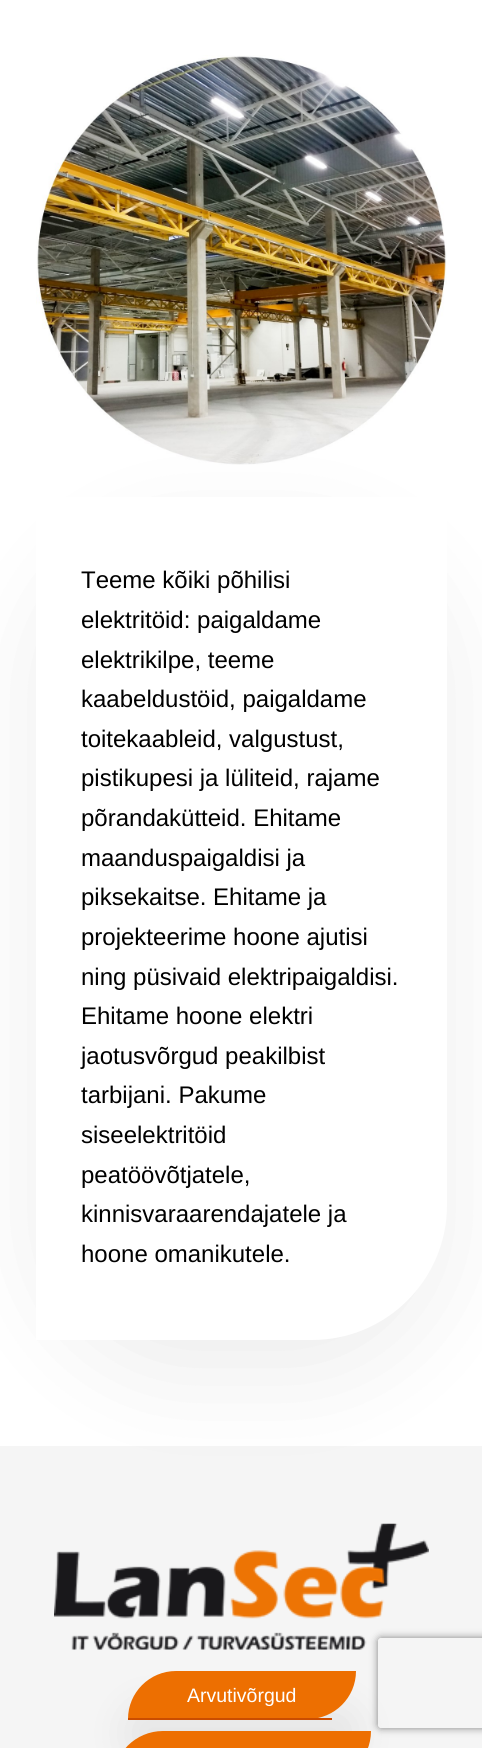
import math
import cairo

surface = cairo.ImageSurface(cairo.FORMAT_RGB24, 482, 1748)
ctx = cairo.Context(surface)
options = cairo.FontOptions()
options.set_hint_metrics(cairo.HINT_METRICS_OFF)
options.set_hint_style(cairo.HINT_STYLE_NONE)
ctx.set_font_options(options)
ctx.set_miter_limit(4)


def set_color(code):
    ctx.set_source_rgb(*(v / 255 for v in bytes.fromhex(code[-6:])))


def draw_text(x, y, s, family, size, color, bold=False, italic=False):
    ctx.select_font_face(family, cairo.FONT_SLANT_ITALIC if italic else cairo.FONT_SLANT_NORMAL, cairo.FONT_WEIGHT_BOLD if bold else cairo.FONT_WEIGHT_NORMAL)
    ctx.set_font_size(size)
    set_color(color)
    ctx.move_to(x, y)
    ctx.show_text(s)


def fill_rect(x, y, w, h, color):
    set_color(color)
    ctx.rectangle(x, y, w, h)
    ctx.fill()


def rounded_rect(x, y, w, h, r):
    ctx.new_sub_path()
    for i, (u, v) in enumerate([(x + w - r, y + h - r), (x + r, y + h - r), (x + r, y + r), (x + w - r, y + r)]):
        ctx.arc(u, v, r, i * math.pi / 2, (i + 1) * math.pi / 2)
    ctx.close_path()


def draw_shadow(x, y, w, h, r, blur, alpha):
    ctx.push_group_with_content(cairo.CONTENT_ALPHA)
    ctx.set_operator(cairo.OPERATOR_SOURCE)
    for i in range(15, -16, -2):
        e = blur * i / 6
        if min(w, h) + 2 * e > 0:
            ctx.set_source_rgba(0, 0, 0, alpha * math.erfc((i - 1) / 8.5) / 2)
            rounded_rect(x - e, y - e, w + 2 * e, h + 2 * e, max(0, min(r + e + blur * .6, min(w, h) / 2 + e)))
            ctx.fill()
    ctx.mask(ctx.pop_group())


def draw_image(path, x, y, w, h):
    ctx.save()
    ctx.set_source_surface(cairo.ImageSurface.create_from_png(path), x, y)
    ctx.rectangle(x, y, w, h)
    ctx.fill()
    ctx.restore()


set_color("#ffffff")
ctx.paint()
draw_image("assets/img1.png", 36, 55, 411, 410)
fill_rect(0, 1446, 482, 302, "#f5f5f5")
set_color("#000000")
draw_shadow(36, 534, 411, 843, 135, 52.5, 0.07)
set_color("#ffffff")
ctx.new_path()
ctx.move_to(36, 497)
ctx.line_to(447, 497)
ctx.line_to(447, 1205)
ctx.curve_to(447, 1279.5, 386.5, 1340, 312, 1340)
ctx.line_to(36, 1340)
ctx.close_path()
ctx.fill()
draw_text(81, 588, "Teeme kõiki põhilisi", "Liberation Sans", 24, "#000000")
draw_text(81, 628, "elektritöid: paigaldame", "Liberation Sans", 24, "#000000")
draw_text(81, 668, "elektrikilpe, teeme", "Liberation Sans", 24, "#000000")
draw_text(81, 707, "kaabeldustöid, paigaldame", "Liberation Sans", 24, "#000000")
draw_text(81, 747, "toitekaableid, valgustust,", "Liberation Sans", 24, "#000000")
draw_text(81, 786, "pistikupesi ja lüliteid, rajame", "Liberation Sans", 24, "#000000")
draw_text(81, 826, "põrandakütteid. Ehitame", "Liberation Sans", 24, "#000000")
draw_text(81, 866, "maanduspaigaldisi ja", "Liberation Sans", 24, "#000000")
draw_text(81, 905, "piksekaitse. Ehitame ja", "Liberation Sans", 24, "#000000")
draw_text(81, 945, "projekteerime hoone ajutisi", "Liberation Sans", 24, "#000000")
draw_text(81, 985, "ning püsivaid elektripaigaldisi.", "Liberation Sans", 24, "#000000")
draw_text(81, 1024, "Ehitame hoone elektri", "Liberation Sans", 24, "#000000")
draw_text(81, 1064, "jaotusvõrgud peakilbist", "Liberation Sans", 24, "#000000")
draw_text(81, 1103, "tarbijani. Pakume", "Liberation Sans", 24, "#000000")
draw_text(81, 1143, "siseelektritöid", "Liberation Sans", 24, "#000000")
draw_text(81, 1183, "peatöövõtjatele,", "Liberation Sans", 24, "#000000")
draw_text(81, 1222, "kinnisvaraarendajatele ja", "Liberation Sans", 24, "#000000")
draw_text(81, 1262, "hoone omanikutele.", "Liberation Sans", 24, "#000000")
draw_image("assets/img2.png", 54, 1523, 375, 127)
set_color("#000000")
draw_shadow(128, 1709, 228, 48, 48, 22.5, 0.07)
set_color("#ed6f01")
ctx.new_path()
ctx.move_to(176, 1671)
ctx.line_to(356, 1671)
ctx.curve_to(356, 1697.5, 334.5, 1719, 308, 1719)
ctx.line_to(128, 1719)
ctx.curve_to(128, 1692.5, 149.5, 1671, 176, 1671)
ctx.close_path()
ctx.fill()
fill_rect(128, 1718, 204, 2, "#cb4d00")
draw_text(187, 1702, "Arvutivõrgud", "Liberation Sans", 19.5, "#ffffff")
set_color("#ed6f01")
ctx.new_path()
ctx.move_to(163, 1731)
ctx.line_to(371, 1731)
ctx.curve_to(371, 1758.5, 348.5, 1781, 321, 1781)
ctx.line_to(113, 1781)
ctx.curve_to(113, 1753.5, 135.5, 1731, 163, 1731)
ctx.close_path()
ctx.fill()
ctx.save()
ctx.set_fill_rule(cairo.FILL_RULE_EVEN_ODD)
ctx.new_path()
ctx.move_to(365, 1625)
ctx.line_to(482, 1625)
ctx.line_to(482, 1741)
ctx.line_to(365, 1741)
ctx.close_path()
ctx.move_to(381, 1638)
ctx.line_to(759, 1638)
ctx.curve_to(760.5, 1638, 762, 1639.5, 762, 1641)
ctx.line_to(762, 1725)
ctx.curve_to(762, 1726.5, 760.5, 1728, 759, 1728)
ctx.line_to(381, 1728)
ctx.curve_to(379.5, 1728, 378, 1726.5, 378, 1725)
ctx.line_to(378, 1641)
ctx.curve_to(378, 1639.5, 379.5, 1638, 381, 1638)
ctx.close_path()
ctx.clip()
set_color("#808080")
draw_shadow(378, 1638, 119, 90, 3, 4, 1)
ctx.restore()
surface.write_to_png("output.png")
